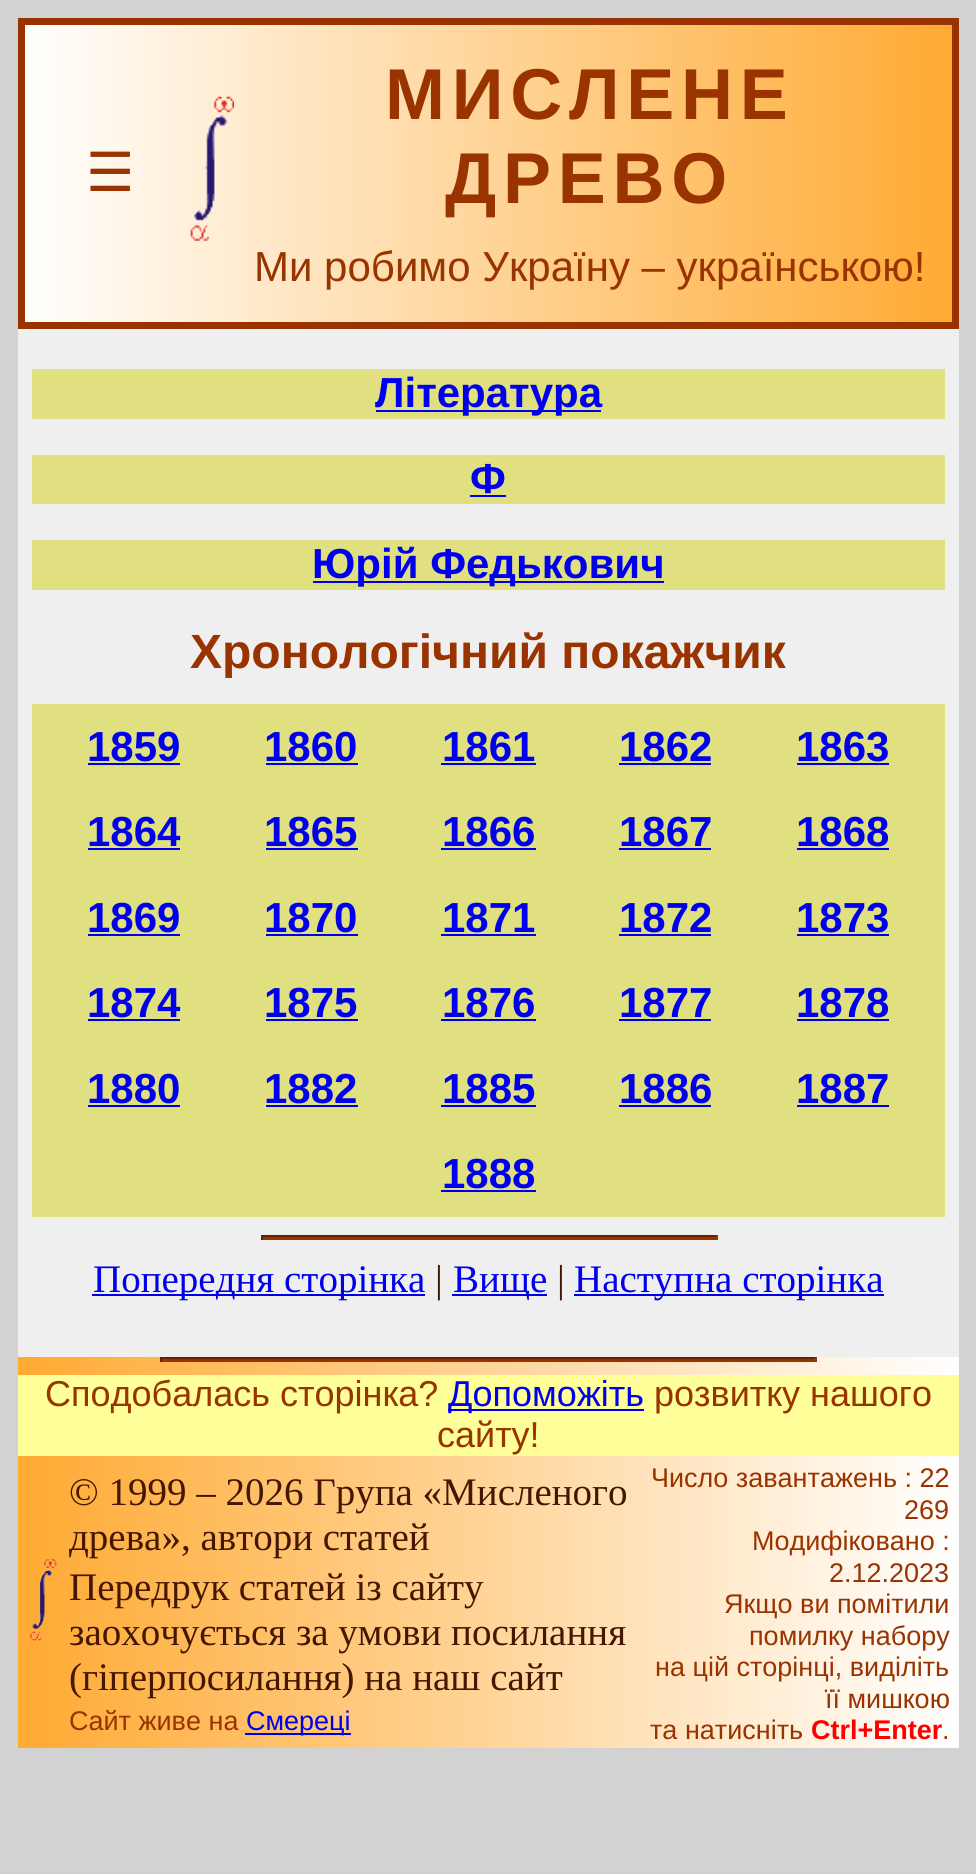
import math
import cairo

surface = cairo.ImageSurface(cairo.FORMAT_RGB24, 976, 1874)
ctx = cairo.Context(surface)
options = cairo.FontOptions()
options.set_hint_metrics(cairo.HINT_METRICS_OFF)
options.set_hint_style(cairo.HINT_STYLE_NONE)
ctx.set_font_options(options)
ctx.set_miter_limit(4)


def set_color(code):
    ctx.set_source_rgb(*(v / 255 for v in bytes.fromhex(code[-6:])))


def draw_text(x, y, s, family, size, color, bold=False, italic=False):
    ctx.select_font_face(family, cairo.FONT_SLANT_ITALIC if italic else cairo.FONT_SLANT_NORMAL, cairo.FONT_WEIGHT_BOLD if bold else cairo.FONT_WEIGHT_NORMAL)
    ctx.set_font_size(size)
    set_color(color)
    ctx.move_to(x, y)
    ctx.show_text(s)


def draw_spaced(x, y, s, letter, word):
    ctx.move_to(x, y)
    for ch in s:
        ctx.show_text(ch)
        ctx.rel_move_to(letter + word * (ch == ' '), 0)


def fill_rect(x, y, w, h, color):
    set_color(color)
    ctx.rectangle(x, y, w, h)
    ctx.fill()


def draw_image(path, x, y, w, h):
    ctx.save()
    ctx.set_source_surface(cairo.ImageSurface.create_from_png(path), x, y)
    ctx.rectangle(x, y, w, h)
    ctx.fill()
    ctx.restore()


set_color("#d2d2d2")
ctx.paint()
gradient = cairo.LinearGradient(25, 173, 952, 173)
gradient.add_color_stop_rgba(0, 1, 1, 1, 1)
gradient.add_color_stop_rgba(1, 1, 0.667, 0.2, 1)
ctx.set_source(gradient)
ctx.rectangle(25, 25, 927, 297)
ctx.fill()
ctx.rectangle(21.5, 21.5, 934, 304)
set_color("#993300")
ctx.set_line_width(7)
ctx.stroke()
draw_text(86, 191, "☰", "DejaVu Sans", 54, "#993300")
draw_image("assets/img1.png", 190, 96, 44, 145)
ctx.select_font_face("Liberation Sans", cairo.FONT_SLANT_NORMAL, cairo.FONT_WEIGHT_BOLD)
ctx.set_font_size(72)
draw_spaced(385, 119, "МИСЛЕНЕ", 6.75, 0)
draw_spaced(445, 203, "ДРЕВО", 6.75, 0)
draw_text(254, 281, "Ми робимо Україну – українською!", "Liberation Sans", 42, "#993300")
fill_rect(18, 329, 941, 1028, "#efefef")
fill_rect(32, 369, 913, 50, "#e0e080")
fill_rect(376, 410, 225, 2, "#0000ee")
draw_text(375, 407, "Література", "Liberation Sans", 42, "#0000ee", bold=True)
fill_rect(32, 455, 913, 49, "#e0e080")
draw_text(470, 493, "Ф", "Liberation Sans", 42, "#0000ee", bold=True)
fill_rect(470, 495, 36, 2, "#0000ee")
fill_rect(32, 540, 913, 50, "#e0e080")
fill_rect(313, 581, 351, 2, "#0000ee")
draw_text(312, 578, "Юрій Федькович", "Liberation Sans", 42, "#0000ee", bold=True)
draw_text(190, 668, "Хронологічний покажчик", "Liberation Sans", 48, "#993300", bold=True)
fill_rect(32, 704, 913, 513, "#e0e080")
draw_text(87, 761, "1859", "Liberation Sans", 42, "#0000ee", bold=True)
fill_rect(88, 763, 92, 2, "#0000ee")
draw_text(264, 761, "1860", "Liberation Sans", 42, "#0000ee", bold=True)
fill_rect(266, 763, 92, 2, "#0000ee")
draw_text(442, 761, "1861", "Liberation Sans", 42, "#0000ee", bold=True)
fill_rect(441, 763, 95, 2, "#0000ee")
draw_text(619, 761, "1862", "Liberation Sans", 42, "#0000ee", bold=True)
fill_rect(619, 763, 92, 2, "#0000ee")
draw_text(796, 761, "1863", "Liberation Sans", 42, "#0000ee", bold=True)
fill_rect(797, 763, 92, 2, "#0000ee")
draw_text(87, 846, "1864", "Liberation Sans", 42, "#0000ee", bold=True)
fill_rect(88, 848, 92, 2, "#0000ee")
draw_text(264, 846, "1865", "Liberation Sans", 42, "#0000ee", bold=True)
fill_rect(266, 848, 92, 2, "#0000ee")
draw_text(442, 846, "1866", "Liberation Sans", 42, "#0000ee", bold=True)
fill_rect(441, 848, 95, 2, "#0000ee")
draw_text(619, 846, "1867", "Liberation Sans", 42, "#0000ee", bold=True)
fill_rect(619, 848, 92, 2, "#0000ee")
draw_text(796, 846, "1868", "Liberation Sans", 42, "#0000ee", bold=True)
fill_rect(797, 848, 92, 2, "#0000ee")
draw_text(87, 932, "1869", "Liberation Sans", 42, "#0000ee", bold=True)
fill_rect(88, 934, 92, 2, "#0000ee")
draw_text(264, 932, "1870", "Liberation Sans", 42, "#0000ee", bold=True)
fill_rect(266, 934, 92, 2, "#0000ee")
draw_text(442, 932, "1871", "Liberation Sans", 42, "#0000ee", bold=True)
fill_rect(441, 934, 95, 2, "#0000ee")
draw_text(619, 932, "1872", "Liberation Sans", 42, "#0000ee", bold=True)
fill_rect(619, 934, 92, 2, "#0000ee")
draw_text(796, 932, "1873", "Liberation Sans", 42, "#0000ee", bold=True)
fill_rect(797, 934, 92, 2, "#0000ee")
draw_text(87, 1017, "1874", "Liberation Sans", 42, "#0000ee", bold=True)
fill_rect(88, 1019, 92, 2, "#0000ee")
draw_text(264, 1017, "1875", "Liberation Sans", 42, "#0000ee", bold=True)
fill_rect(266, 1019, 92, 2, "#0000ee")
draw_text(442, 1017, "1876", "Liberation Sans", 42, "#0000ee", bold=True)
fill_rect(441, 1019, 95, 2, "#0000ee")
draw_text(619, 1017, "1877", "Liberation Sans", 42, "#0000ee", bold=True)
fill_rect(619, 1019, 92, 2, "#0000ee")
draw_text(796, 1017, "1878", "Liberation Sans", 42, "#0000ee", bold=True)
fill_rect(797, 1019, 92, 2, "#0000ee")
draw_text(87, 1103, "1880", "Liberation Sans", 42, "#0000ee", bold=True)
fill_rect(88, 1105, 92, 2, "#0000ee")
draw_text(264, 1103, "1882", "Liberation Sans", 42, "#0000ee", bold=True)
fill_rect(266, 1105, 92, 2, "#0000ee")
draw_text(442, 1103, "1885", "Liberation Sans", 42, "#0000ee", bold=True)
fill_rect(441, 1105, 95, 2, "#0000ee")
draw_text(619, 1103, "1886", "Liberation Sans", 42, "#0000ee", bold=True)
fill_rect(619, 1105, 92, 2, "#0000ee")
draw_text(796, 1103, "1887", "Liberation Sans", 42, "#0000ee", bold=True)
fill_rect(797, 1105, 92, 2, "#0000ee")
draw_text(442, 1188, "1888", "Liberation Sans", 42, "#0000ee", bold=True)
fill_rect(441, 1190, 95, 2, "#0000ee")
fill_rect(261, 1237, 457, 3, "#993300")
fill_rect(261, 1235, 457, 2, "#662200")
fill_rect(716, 1235, 2, 5, "#993300")
fill_rect(261, 1235, 2, 5, "#662200")
fill_rect(92, 1294, 333, 2, "#0000ee")
draw_text(93, 1292, "Попередня сторінка", "Liberation Serif", 39, "#0000ee")
draw_text(435, 1292, "|", "Liberation Serif", 39, "#451700")
fill_rect(452, 1294, 95, 2, "#0000ee")
draw_text(453, 1292, "Вище", "Liberation Serif", 39, "#0000ee")
draw_text(557, 1292, "|", "Liberation Serif", 39, "#451700")
fill_rect(574, 1294, 310, 2, "#0000ee")
draw_text(574, 1292, "Наступна сторінка", "Liberation Serif", 39, "#0000ee")
gradient = cairo.LinearGradient(18, 1553, 959, 1553)
gradient.add_color_stop_rgba(0, 1, 0.667, 0.2, 1)
gradient.add_color_stop_rgba(1, 1, 1, 1, 1)
ctx.set_source(gradient)
ctx.rectangle(18, 1357, 941, 391)
ctx.fill()
fill_rect(160, 1359, 657, 3, "#993300")
fill_rect(160, 1357, 657, 2, "#662200")
fill_rect(815, 1357, 2, 5, "#993300")
fill_rect(160, 1357, 2, 5, "#662200")
fill_rect(18, 1375, 941, 81, "#ffff99")
draw_text(45, 1406, "Сподобалась сторінка?", "Liberation Sans", 36, "#993300")
fill_rect(448, 1409, 196, 2, "#0000ee")
draw_text(448, 1406, "Допоможіть", "Liberation Sans", 36, "#0000ee")
draw_text(654, 1406, "розвитку нашого", "Liberation Sans", 36, "#993300")
draw_text(437, 1447, "сайту!", "Liberation Sans", 36, "#993300")
draw_image("assets/img2.png", 30, 1559, 27, 82)
draw_text(69, 1505, "© 1999 – 2026 Група «Мисленого", "Liberation Serif", 39, "#451700")
draw_text(69, 1550, "древа», автори статей", "Liberation Serif", 39, "#451700")
draw_text(69, 1600, "Передрук статей із сайту", "Liberation Serif", 39, "#451700")
draw_text(69, 1645, "заохочується за умови посилання", "Liberation Serif", 39, "#451700")
draw_text(69, 1690, "(гіперпосилання) на наш сайт", "Liberation Serif", 39, "#451700")
draw_text(69, 1730, "Сайт живе на", "Liberation Sans", 27, "#993300")
fill_rect(245, 1733, 106, 2, "#0000ee")
draw_text(246, 1730, "Смереці", "Liberation Sans", 27, "#0000ee")
draw_text(651, 1487, "Число завантажень : 22", "Liberation Sans", 27, "#993300")
draw_text(904, 1519, "269", "Liberation Sans", 27, "#993300")
draw_text(752, 1550, "Модифіковано :", "Liberation Sans", 27, "#993300")
draw_text(829, 1582, "2.12.2023", "Liberation Sans", 27, "#993300")
draw_text(724, 1613, "Якщо ви помітили", "Liberation Sans", 27, "#993300")
draw_text(749, 1645, "помилку набору", "Liberation Sans", 27, "#993300")
draw_text(655, 1676, "на цiй сторiнцi, видiлiть", "Liberation Sans", 27, "#993300")
draw_text(825, 1708, "її мишкою", "Liberation Sans", 27, "#993300")
draw_text(650, 1739, "та натисніть", "Liberation Sans", 27, "#993300")
draw_text(811, 1739, "Ctrl+Enter", "Liberation Sans", 27, "#ff0000", bold=True)
draw_text(942, 1739, ".", "Liberation Sans", 27, "#993300")
surface.write_to_png("output.png")
